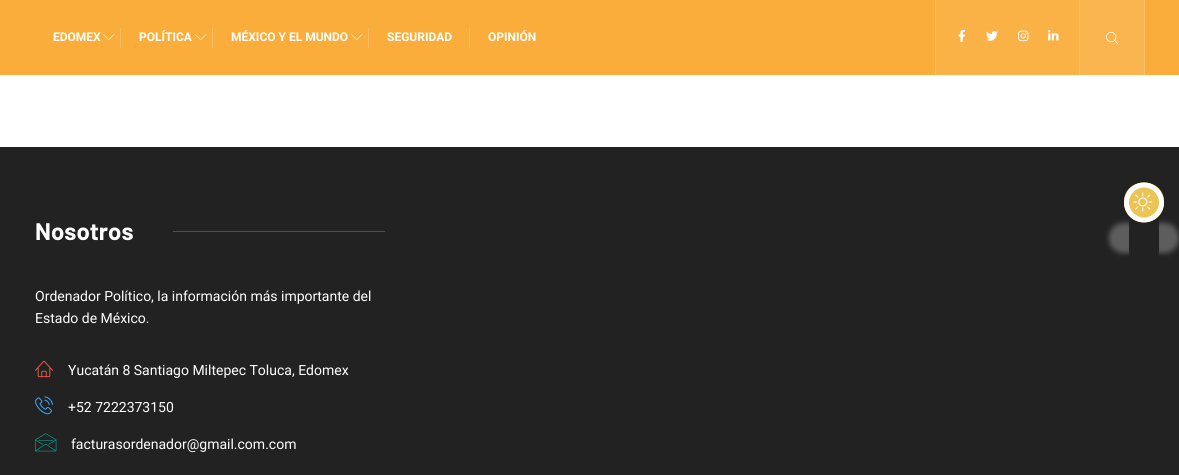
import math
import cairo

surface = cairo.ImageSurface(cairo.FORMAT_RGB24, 1179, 475)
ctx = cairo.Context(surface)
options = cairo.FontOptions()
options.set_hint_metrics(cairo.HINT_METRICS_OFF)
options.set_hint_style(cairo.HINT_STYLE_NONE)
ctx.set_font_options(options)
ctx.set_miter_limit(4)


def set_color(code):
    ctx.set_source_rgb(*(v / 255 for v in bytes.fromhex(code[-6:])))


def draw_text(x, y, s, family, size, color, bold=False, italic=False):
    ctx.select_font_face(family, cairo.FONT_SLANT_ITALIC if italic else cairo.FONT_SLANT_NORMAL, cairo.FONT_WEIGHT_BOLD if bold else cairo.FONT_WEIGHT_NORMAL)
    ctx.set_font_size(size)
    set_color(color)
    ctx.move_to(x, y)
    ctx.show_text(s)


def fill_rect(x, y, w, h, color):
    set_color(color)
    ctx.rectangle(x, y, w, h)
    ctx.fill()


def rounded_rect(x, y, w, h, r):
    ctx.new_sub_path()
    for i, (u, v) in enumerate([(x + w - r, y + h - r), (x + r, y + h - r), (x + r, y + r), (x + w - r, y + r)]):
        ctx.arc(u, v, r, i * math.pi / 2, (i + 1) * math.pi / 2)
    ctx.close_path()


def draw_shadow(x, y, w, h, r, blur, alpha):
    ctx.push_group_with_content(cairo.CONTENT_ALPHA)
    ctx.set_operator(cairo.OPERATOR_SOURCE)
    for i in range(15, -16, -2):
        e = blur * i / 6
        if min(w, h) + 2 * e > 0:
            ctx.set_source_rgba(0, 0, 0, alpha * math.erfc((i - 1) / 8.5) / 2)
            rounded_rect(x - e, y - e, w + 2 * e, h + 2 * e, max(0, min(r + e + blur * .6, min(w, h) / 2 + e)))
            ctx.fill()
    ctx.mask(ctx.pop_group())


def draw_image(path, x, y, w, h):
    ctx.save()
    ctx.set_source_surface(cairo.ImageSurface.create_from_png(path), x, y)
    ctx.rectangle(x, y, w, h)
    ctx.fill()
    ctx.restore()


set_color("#ffffff")
ctx.paint()
fill_rect(0, 0, 1179, 75, "#faad3b")
draw_text(53, 41, "EDOMEX", "Roboto", 12, "#ffffff", bold=True)
draw_image("assets/img1.png", 103, 34, 12, 6)
fill_rect(120, 28, 1, 20, "#fbbd62")
draw_text(139, 41, "POLÍTICA", "Roboto", 12, "#ffffff", bold=True)
draw_image("assets/img1.png", 195, 34, 12, 6)
fill_rect(212, 28, 1, 20, "#fbbd62")
draw_text(231, 41, "MÉXICO Y EL MUNDO", "Roboto", 12, "#ffffff", bold=True)
draw_image("assets/img1.png", 351, 34, 12, 6)
fill_rect(368, 28, 1, 20, "#fbbd62")
draw_text(387, 41, "SEGURIDAD", "Roboto", 12, "#ffffff", bold=True)
fill_rect(469, 28, 1, 20, "#fbbd62")
draw_text(488, 41, "OPINIÓN", "Roboto", 12, "#ffffff", bold=True)
fill_rect(936, 0, 143, 75, "#fab145")
fill_rect(1079, 0, 1, 75, "#fbc16a")
fill_rect(935, 0, 1, 75, "#fbc16a")
draw_image("assets/img2.png", 958, 29, 7, 13)
draw_image("assets/img3.png", 986, 31, 12, 10)
draw_image("assets/img4.png", 1018, 30, 11, 12)
draw_image("assets/img5.png", 1048, 29, 11, 12)
fill_rect(1080, 0, 64, 75, "#fbb54f")
fill_rect(1144, 0, 1, 75, "#fcc472")
draw_image("assets/img6.png", 1106, 31, 12, 13)
fill_rect(0, 147, 1179, 328, "#222222")
draw_text(35, 240, "Nosotros", "Barlow", 24, "#ffffff", bold=True)
fill_rect(173, 231, 212, 1, "#504f4f")
draw_text(35, 301, "Ordenador Político, la información más importante del", "Roboto", 14, "#ffffff")
draw_text(35, 323, "Estado de México.", "Roboto", 14, "#ffffff")
draw_image("assets/img7.png", 35, 360, 18, 18)
draw_text(68, 375, "Yucatán 8 Santiago Miltepec Toluca, Edomex", "Roboto", 14, "#ffffff")
draw_image("assets/img8.png", 35, 396, 18, 19)
draw_text(68, 412, "+52 7222373150", "Roboto", 14, "#ffffff")
draw_image("assets/img9.png", 35, 433, 22, 19)
draw_text(71, 449, "facturasordenador@gmail.com.com", "Roboto", 14, "#ffffff")
ctx.save()
ctx.set_fill_rule(cairo.FILL_RULE_EVEN_ODD)
ctx.new_path()
ctx.move_to(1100, 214)
ctx.line_to(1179, 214)
ctx.line_to(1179, 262)
ctx.line_to(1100, 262)
ctx.close_path()
ctx.move_to(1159, 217.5)
ctx.line_to(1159, 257.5)
ctx.curve_to(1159, 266, 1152.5, 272.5, 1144, 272.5)
ctx.curve_to(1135.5, 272.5, 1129, 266, 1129, 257.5)
ctx.line_to(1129, 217.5)
ctx.curve_to(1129, 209, 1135.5, 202.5, 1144, 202.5)
ctx.curve_to(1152.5, 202.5, 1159, 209, 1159, 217.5)
ctx.close_path()
ctx.clip()
set_color("#777777")
draw_shadow(1109, 223, 70, 30, 15, 2.5, 0.7)
ctx.restore()
set_color("#ecc355")
ctx.new_path()
ctx.move_to(1164, 202)
ctx.curve_to(1164, 229, 1124, 229, 1124, 202)
ctx.curve_to(1124, 176, 1164, 176, 1164, 202)
ctx.close_path()
ctx.fill()
ctx.new_path()
ctx.move_to(1161.5, 202.5)
ctx.curve_to(1161.5, 212, 1153.5, 220, 1144, 220)
ctx.curve_to(1134.5, 220, 1126.5, 212, 1126.5, 202.5)
ctx.curve_to(1126.5, 193, 1134.5, 185, 1144, 185)
ctx.curve_to(1153.5, 185, 1161.5, 193, 1161.5, 202.5)
ctx.close_path()
set_color("#ffffff")
ctx.set_line_width(5)
ctx.stroke()
draw_image("assets/img10.png", 1133, 192, 20, 20)
surface.write_to_png("output.png")
